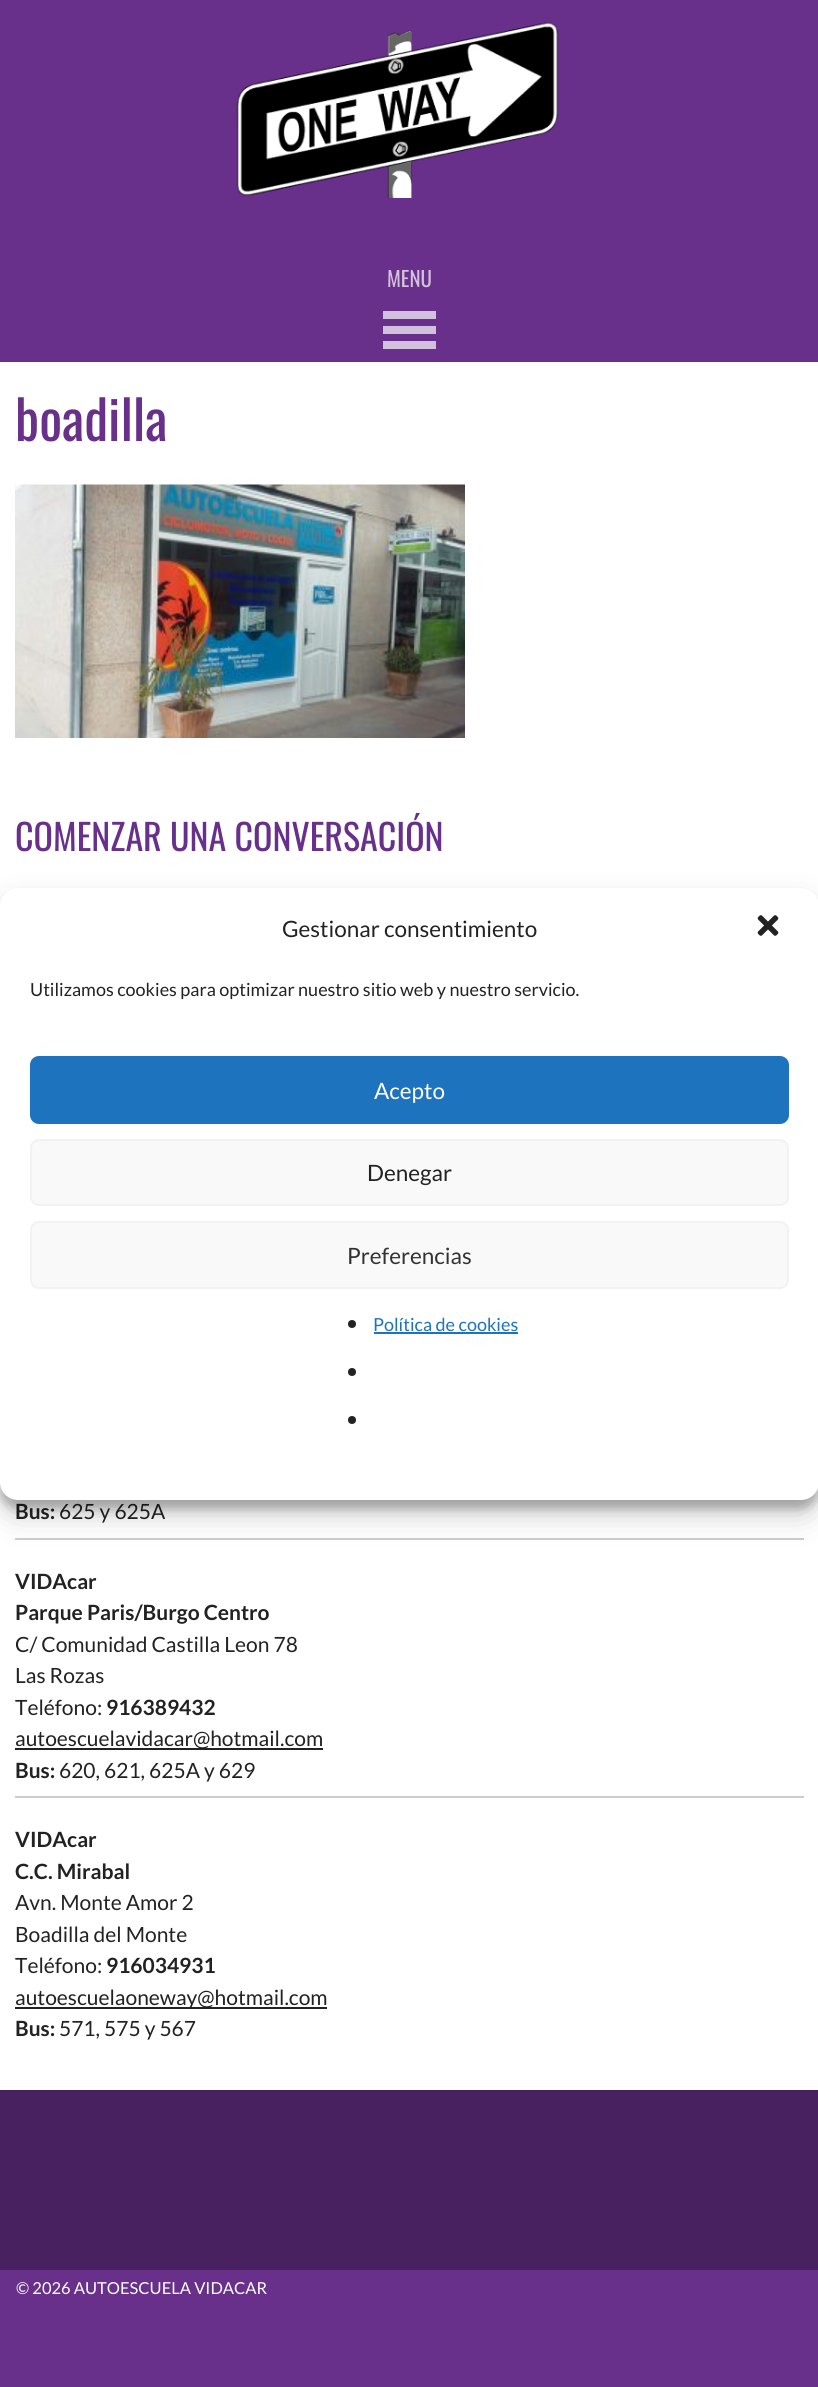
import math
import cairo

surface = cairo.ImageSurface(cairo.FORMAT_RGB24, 818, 2387)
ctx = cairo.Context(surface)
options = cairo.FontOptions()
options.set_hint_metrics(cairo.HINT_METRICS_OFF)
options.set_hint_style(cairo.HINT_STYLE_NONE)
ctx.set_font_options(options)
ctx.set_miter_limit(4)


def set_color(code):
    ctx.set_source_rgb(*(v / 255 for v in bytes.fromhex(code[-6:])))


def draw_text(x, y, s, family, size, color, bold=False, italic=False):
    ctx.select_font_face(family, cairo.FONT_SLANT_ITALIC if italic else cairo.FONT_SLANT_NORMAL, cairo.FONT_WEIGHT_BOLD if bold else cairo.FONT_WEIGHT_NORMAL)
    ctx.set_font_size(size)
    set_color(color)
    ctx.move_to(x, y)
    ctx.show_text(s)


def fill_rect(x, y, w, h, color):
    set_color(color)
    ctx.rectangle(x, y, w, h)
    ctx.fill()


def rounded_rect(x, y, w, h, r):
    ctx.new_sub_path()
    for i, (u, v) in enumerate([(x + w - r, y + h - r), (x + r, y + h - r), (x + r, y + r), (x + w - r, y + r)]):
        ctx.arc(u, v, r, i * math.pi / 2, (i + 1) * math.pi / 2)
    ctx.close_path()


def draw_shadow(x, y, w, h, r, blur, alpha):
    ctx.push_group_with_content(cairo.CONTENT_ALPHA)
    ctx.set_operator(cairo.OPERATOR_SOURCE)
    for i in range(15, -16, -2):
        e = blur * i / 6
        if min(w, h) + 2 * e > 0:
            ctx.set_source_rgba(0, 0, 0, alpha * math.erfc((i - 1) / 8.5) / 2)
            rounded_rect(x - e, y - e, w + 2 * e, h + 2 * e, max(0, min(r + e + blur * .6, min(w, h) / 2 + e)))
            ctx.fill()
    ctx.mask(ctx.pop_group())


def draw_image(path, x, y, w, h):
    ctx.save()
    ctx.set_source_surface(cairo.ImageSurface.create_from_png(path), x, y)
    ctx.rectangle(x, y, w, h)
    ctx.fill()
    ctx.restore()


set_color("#68308b")
ctx.paint()
draw_image("assets/img1.png", 236, 22, 323, 176)
draw_text(387, 287, "MENU", "Oswald", 21, "#d2c1dc")
ctx.new_path()
ctx.move_to(383, 349)
ctx.line_to(436, 349)
ctx.line_to(436, 341)
ctx.line_to(383, 341)
ctx.close_path()
ctx.move_to(383, 311)
ctx.line_to(383, 319)
ctx.line_to(436, 319)
ctx.line_to(436, 311)
ctx.close_path()
ctx.move_to(383, 334)
ctx.line_to(436, 334)
ctx.line_to(436, 326)
ctx.line_to(383, 326)
ctx.close_path()
ctx.fill()
fill_rect(0, 362, 818, 1728, "#ffffff")
draw_text(15, 441, "boadilla", "Oswald", 54, "#68308b")
draw_image("assets/img2.png", 15, 484, 450, 254)
draw_text(15, 851, "COMENZAR UNA CONVERSACIÓN", "Oswald", 36, "#68308b")
draw_text(15, 1519, "Bus:", "Lato", 21, "#222222", bold=True)
draw_text(59, 1519, "625 y 625A", "Lato", 21, "#222222")
fill_rect(15, 1538, 789, 2, "#cccccc")
draw_text(15, 1589, "VIDAcar", "Lato", 21, "#222222", bold=True)
draw_text(15, 1620, "Parque Paris/Burgo Centro", "Lato", 21, "#222222", bold=True)
draw_text(15, 1652, "C/ Comunidad Castilla Leon 78", "Lato", 21, "#222222")
draw_text(15, 1683, "Las Rozas", "Lato", 21, "#222222")
draw_text(15, 1715, "Teléfono:", "Lato", 21, "#222222")
draw_text(106, 1715, "916389432", "Lato", 21, "#222222", bold=True)
fill_rect(15, 1748, 308, 2, "#222222")
draw_text(15, 1746, "autoescuelavidacar@hotmail.com", "Lato", 21, "#222222")
draw_text(15, 1778, "Bus:", "Lato", 21, "#222222", bold=True)
draw_text(59, 1778, "620, 621, 625A y 629", "Lato", 21, "#222222")
fill_rect(15, 1796, 789, 2, "#cccccc")
draw_text(15, 1847, "VIDAcar", "Lato", 21, "#222222", bold=True)
draw_text(15, 1879, "C.C. Mirabal", "Lato", 21, "#222222", bold=True)
draw_text(15, 1910, "Avn. Monte Amor 2", "Lato", 21, "#222222")
draw_text(15, 1942, "Boadilla del Monte", "Lato", 21, "#222222")
draw_text(15, 1973, "Teléfono:", "Lato", 21, "#222222")
draw_text(106, 1973, "916034931", "Lato", 21, "#222222", bold=True)
fill_rect(15, 2007, 312, 2, "#222222")
draw_text(15, 2005, "autoescuelaoneway@hotmail.com", "Lato", 21, "#222222")
draw_text(15, 2036, "Bus:", "Lato", 21, "#222222", bold=True)
draw_text(59, 2036, "571, 575 y 567", "Lato", 21, "#222222")
fill_rect(0, 2090, 818, 180, "#482160")
set_color("#000000")
draw_shadow(0, 897, 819, 612, 18, 4.5, 0.23)
draw_shadow(0, 903, 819, 612, 18, 15, 0.19)
set_color("#ffffff")
rounded_rect(0, 888, 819, 612, 18)
ctx.fill()
draw_text(282, 937, "Gestionar consentimiento", "Lato", 22.5, "#222222")
draw_image("assets/img3.png", 757, 915, 22, 21)
draw_text(30, 996, "Utilizamos cookies para optimizar nuestro sitio web y nuestro servicio.", "Lato", 18, "#222222")
set_color("#1e73be")
rounded_rect(31, 1057, 757, 66, 8)
ctx.fill_preserve()
ctx.stroke()
draw_text(374, 1099, "Acepto", "Lato", 22.5, "#ffffff")
set_color("#f9f9f9")
rounded_rect(31, 1140, 757, 65, 8)
ctx.fill_preserve()
set_color("#f2f2f2")
ctx.stroke()
draw_text(367, 1181, "Denegar", "Lato", 22.5, "#222222")
set_color("#f9f9f9")
rounded_rect(31, 1222, 757, 66, 8)
ctx.fill_preserve()
set_color("#f2f2f2")
ctx.stroke()
draw_text(347, 1264, "Preferencias", "Lato", 22.5, "#333333")
set_color("#222222")
ctx.new_path()
ctx.arc(352, 1324, 4, 0, 2 * math.pi)
ctx.fill()
draw_text(373, 1331, "Política de cookies", "Lato", 18, "#1e73be")
fill_rect(374, 1332, 144, 2, "#1e73be")
set_color("#222222")
ctx.new_path()
ctx.arc(352, 1372, 4, 0, 2 * math.pi)
ctx.fill()
ctx.arc(352, 1420, 4, 0, 2 * math.pi)
ctx.fill()
draw_text(16, 2294, "© 2026 AUTOESCUELA VIDACAR", "Lato", 16.5, "#ffffff")
surface.write_to_png("output.png")
